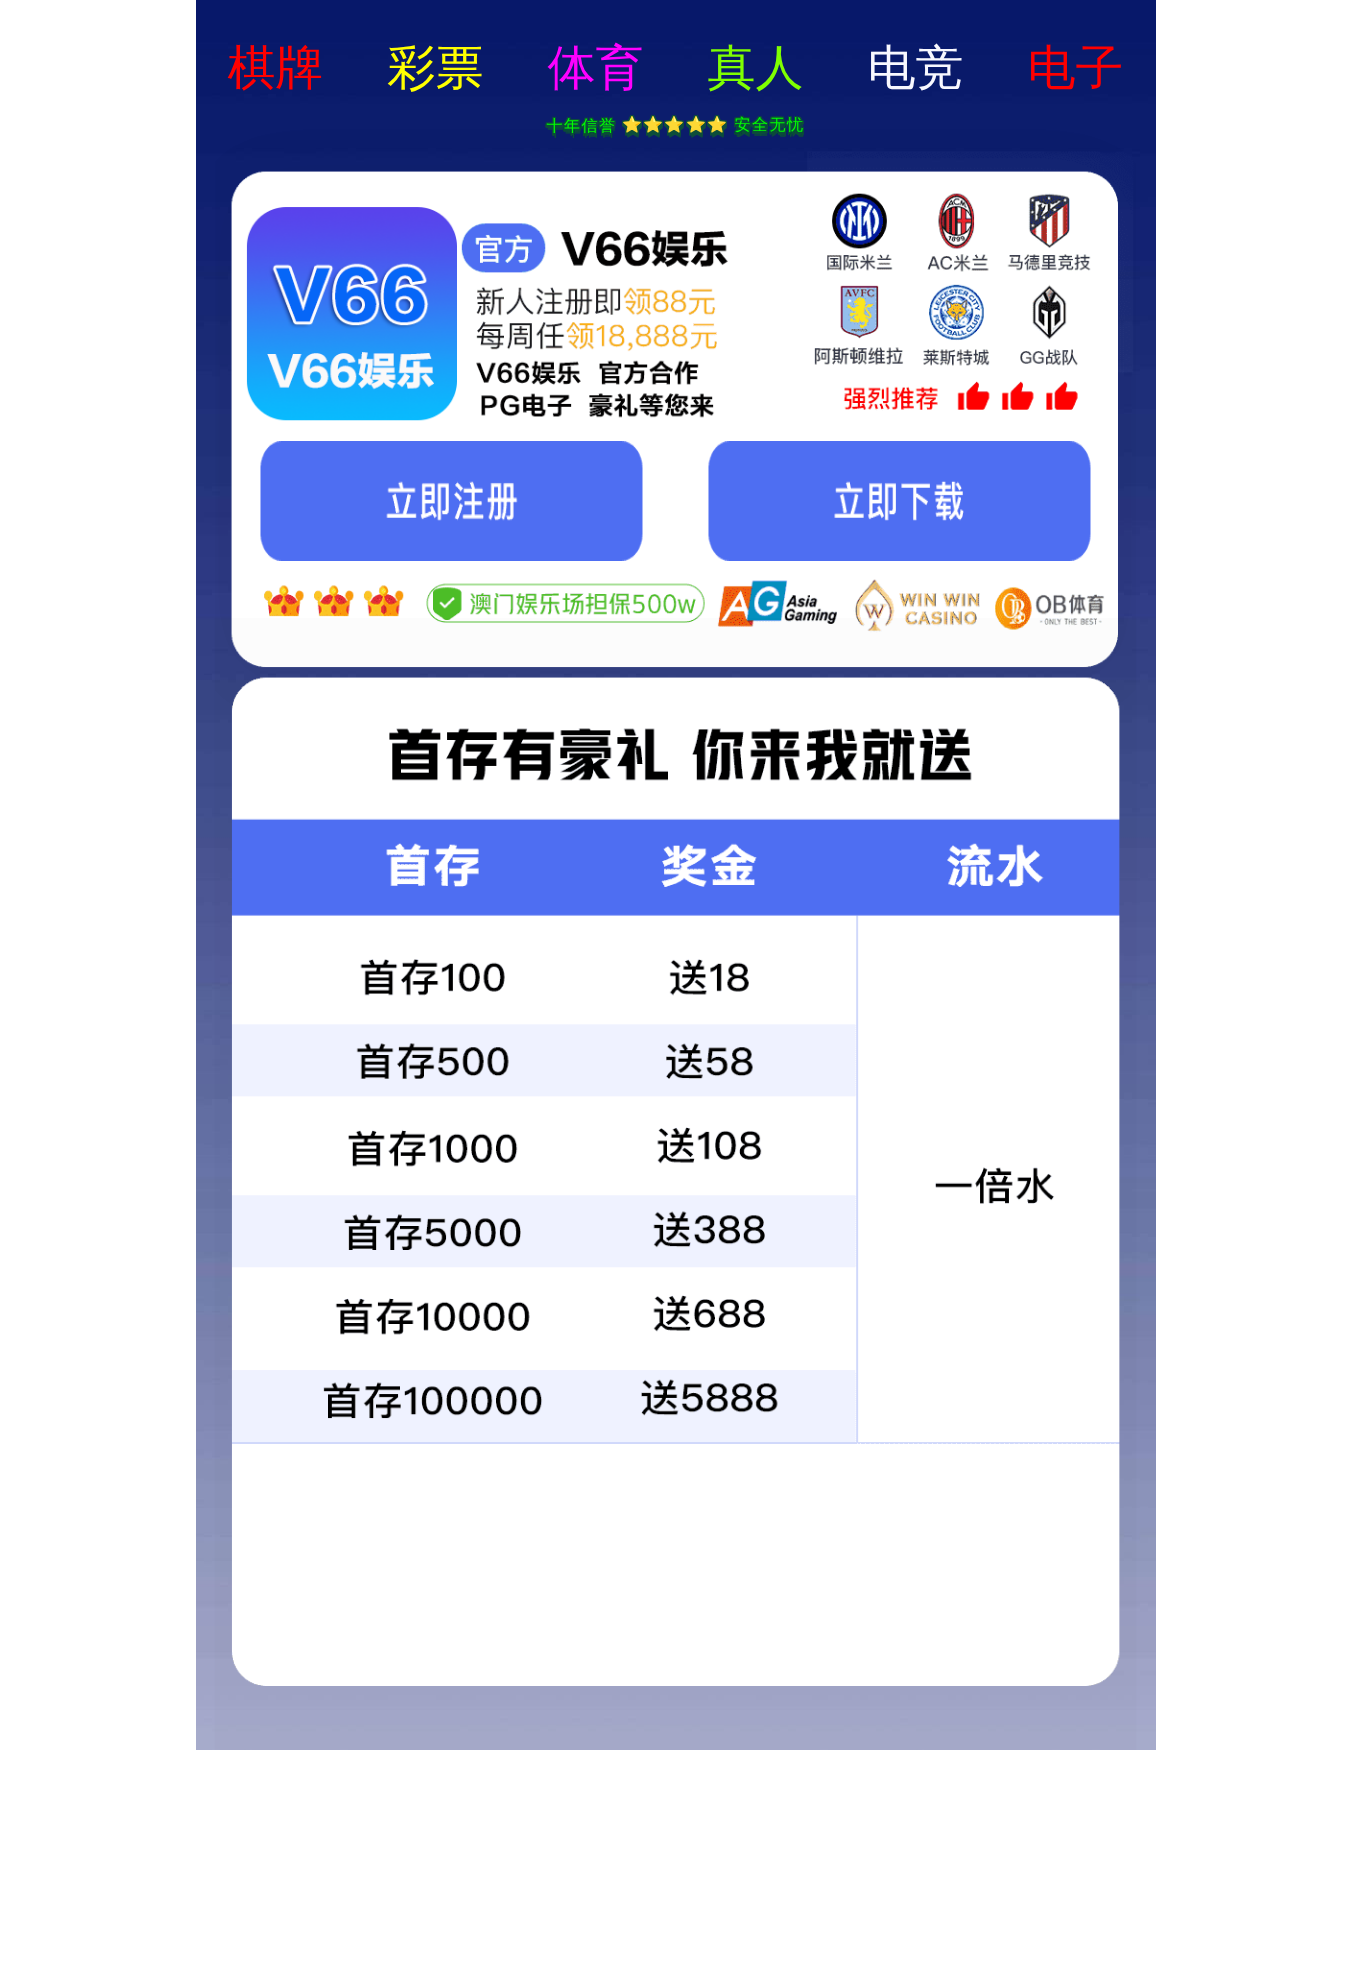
import math
import cairo

surface = cairo.ImageSurface(cairo.FORMAT_RGB24, 1351, 1985)
ctx = cairo.Context(surface)
options = cairo.FontOptions()
options.set_hint_metrics(cairo.HINT_METRICS_OFF)
options.set_hint_style(cairo.HINT_STYLE_NONE)
ctx.set_font_options(options)
ctx.set_miter_limit(4)


def set_color(code):
    ctx.set_source_rgb(*(v / 255 for v in bytes.fromhex(code[-6:])))


def draw_image(path, x, y, w, h):
    ctx.save()
    ctx.set_source_surface(cairo.ImageSurface.create_from_png(path), x, y)
    ctx.rectangle(x, y, w, h)
    ctx.fill()
    ctx.restore()


set_color("#ffffff")
ctx.paint()
draw_image("assets/img1.png", 196, 0, 960, 1750)
surface.write_to_png("output.png")
